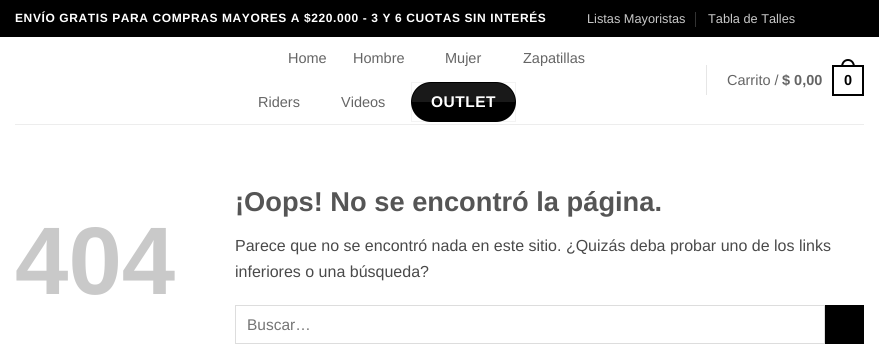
import math
import cairo

surface = cairo.ImageSurface(cairo.FORMAT_RGB24, 879, 347)
ctx = cairo.Context(surface)
options = cairo.FontOptions()
options.set_hint_metrics(cairo.HINT_METRICS_OFF)
options.set_hint_style(cairo.HINT_STYLE_NONE)
ctx.set_font_options(options)
ctx.set_miter_limit(4)


def set_color(code):
    ctx.set_source_rgb(*(v / 255 for v in bytes.fromhex(code[-6:])))


def draw_text(x, y, s, family, size, color, bold=False, italic=False):
    ctx.select_font_face(family, cairo.FONT_SLANT_ITALIC if italic else cairo.FONT_SLANT_NORMAL, cairo.FONT_WEIGHT_BOLD if bold else cairo.FONT_WEIGHT_NORMAL)
    ctx.set_font_size(size)
    set_color(color)
    ctx.move_to(x, y)
    ctx.show_text(s)


def draw_spaced(x, y, s, letter, word):
    ctx.move_to(x, y)
    for ch in s:
        ctx.show_text(ch)
        ctx.rel_move_to(letter + word * (ch == ' '), 0)


def fill_rect(x, y, w, h, color):
    set_color(color)
    ctx.rectangle(x, y, w, h)
    ctx.fill()


def rounded_rect(x, y, w, h, r):
    ctx.new_sub_path()
    for i, (u, v) in enumerate([(x + w - r, y + h - r), (x + r, y + h - r), (x + r, y + r), (x + w - r, y + r)]):
        ctx.arc(u, v, r, i * math.pi / 2, (i + 1) * math.pi / 2)
    ctx.close_path()


set_color("#ffffff")
ctx.paint()
fill_rect(0, 0, 879, 37, "#000000")
ctx.select_font_face("Liberation Sans", cairo.FONT_SLANT_NORMAL, cairo.FONT_WEIGHT_BOLD)
ctx.set_font_size(12)
set_color("#ffffff")
draw_spaced(15, 22, "ENVÍO GRATIS PARA COMPRAS MAYORES A $220.000 - 3 Y 6 CUOTAS SIN INTERÉS", 0.6, 0)
draw_text(587, 23, "Listas Mayoristas", "Liberation Sans", 12.75, "#c9c9c9")
fill_rect(695, 12, 1, 15, "#333333")
draw_text(708, 23, "Tabla de Talles", "Liberation Sans", 12.75, "#c9c9c9")
draw_text(288, 63, "Home", "Liberation Sans", 14.5, "#656565")
draw_text(353, 63, "Hombre", "Liberation Sans", 14.5, "#656565")
draw_text(445, 63, "Mujer", "Liberation Sans", 14.5, "#656565")
draw_text(523, 63, "Zapatillas", "Liberation Sans", 14.5, "#656565")
draw_text(258, 107, "Riders", "Liberation Sans", 14.5, "#656565")
draw_text(341, 107, "Videos", "Liberation Sans", 14.5, "#656565")
set_color("#000000")
rounded_rect(411, 82, 105, 40, 20)
ctx.fill()
ctx.rectangle(411.5, 82.5, 104, 39)
ctx.set_source_rgba(0, 0, 0, 0.05)
ctx.set_line_width(1)
ctx.stroke()
ctx.set_source_rgba(1, 1, 1, 0.1)
ctx.new_path()
ctx.move_to(431, 83)
ctx.line_to(496, 83)
ctx.curve_to(506.5, 83, 515, 91.5, 515, 102)
ctx.line_to(412, 102)
ctx.curve_to(412, 91.5, 420.5, 83, 431, 83)
ctx.close_path()
ctx.fill()
ctx.select_font_face("Liberation Sans", cairo.FONT_SLANT_NORMAL, cairo.FONT_WEIGHT_BOLD)
ctx.set_font_size(15.5)
set_color("#ffffff")
draw_spaced(431, 107, "OUTLET", 0.5, 0)
fill_rect(706, 65, 1, 30, "#e6e6e6")
draw_text(727, 85, "Carrito /", "Liberation Sans", 14.5, "#656565")
draw_text(782, 85, "$ 0,00", "Liberation Sans", 14.5, "#656565", bold=True)
ctx.rectangle(833, 66, 30, 29)
set_color("#000000")
ctx.set_line_width(2)
ctx.stroke()
ctx.set_fill_rule(cairo.FILL_RULE_EVEN_ODD)
ctx.new_path()
ctx.move_to(848, 59)
ctx.curve_to(852.5, 59, 855, 63, 855, 67)
ctx.line_to(841, 67)
ctx.curve_to(841, 63, 843.5, 59, 848, 59)
ctx.close_path()
ctx.move_to(848, 61)
ctx.curve_to(851.5, 61, 853, 64, 853, 67)
ctx.line_to(843, 67)
ctx.curve_to(843, 64, 844.5, 61, 848, 61)
ctx.close_path()
ctx.fill()
draw_text(844, 85, "0", "Liberation Sans", 14.5, "#000000", bold=True)
fill_rect(15, 124, 849, 1, "#ededed")
draw_text(15, 294, "404", "Liberation Sans", 96, "#c9c9c9", bold=True)
draw_text(235, 211, "¡Oops! No se encontró la página.", "Liberation Sans", 27.25, "#555555", bold=True)
draw_text(235, 251, "Parece que no se encontró nada en este sitio. ¿Quizás deba probar uno de los links", "Liberation Sans", 16, "#4a4a4a")
draw_text(235, 277, "inferiores o una búsqueda?", "Liberation Sans", 16, "#4a4a4a")
ctx.rectangle(235.5, 305.5, 589, 38)
set_color("#dddddd")
ctx.set_line_width(1)
ctx.stroke()
draw_text(247, 330, "Buscar…", "Liberation Sans", 15.5, "#757575")
fill_rect(825, 305, 39, 39, "#000000")
surface.write_to_png("output.png")
